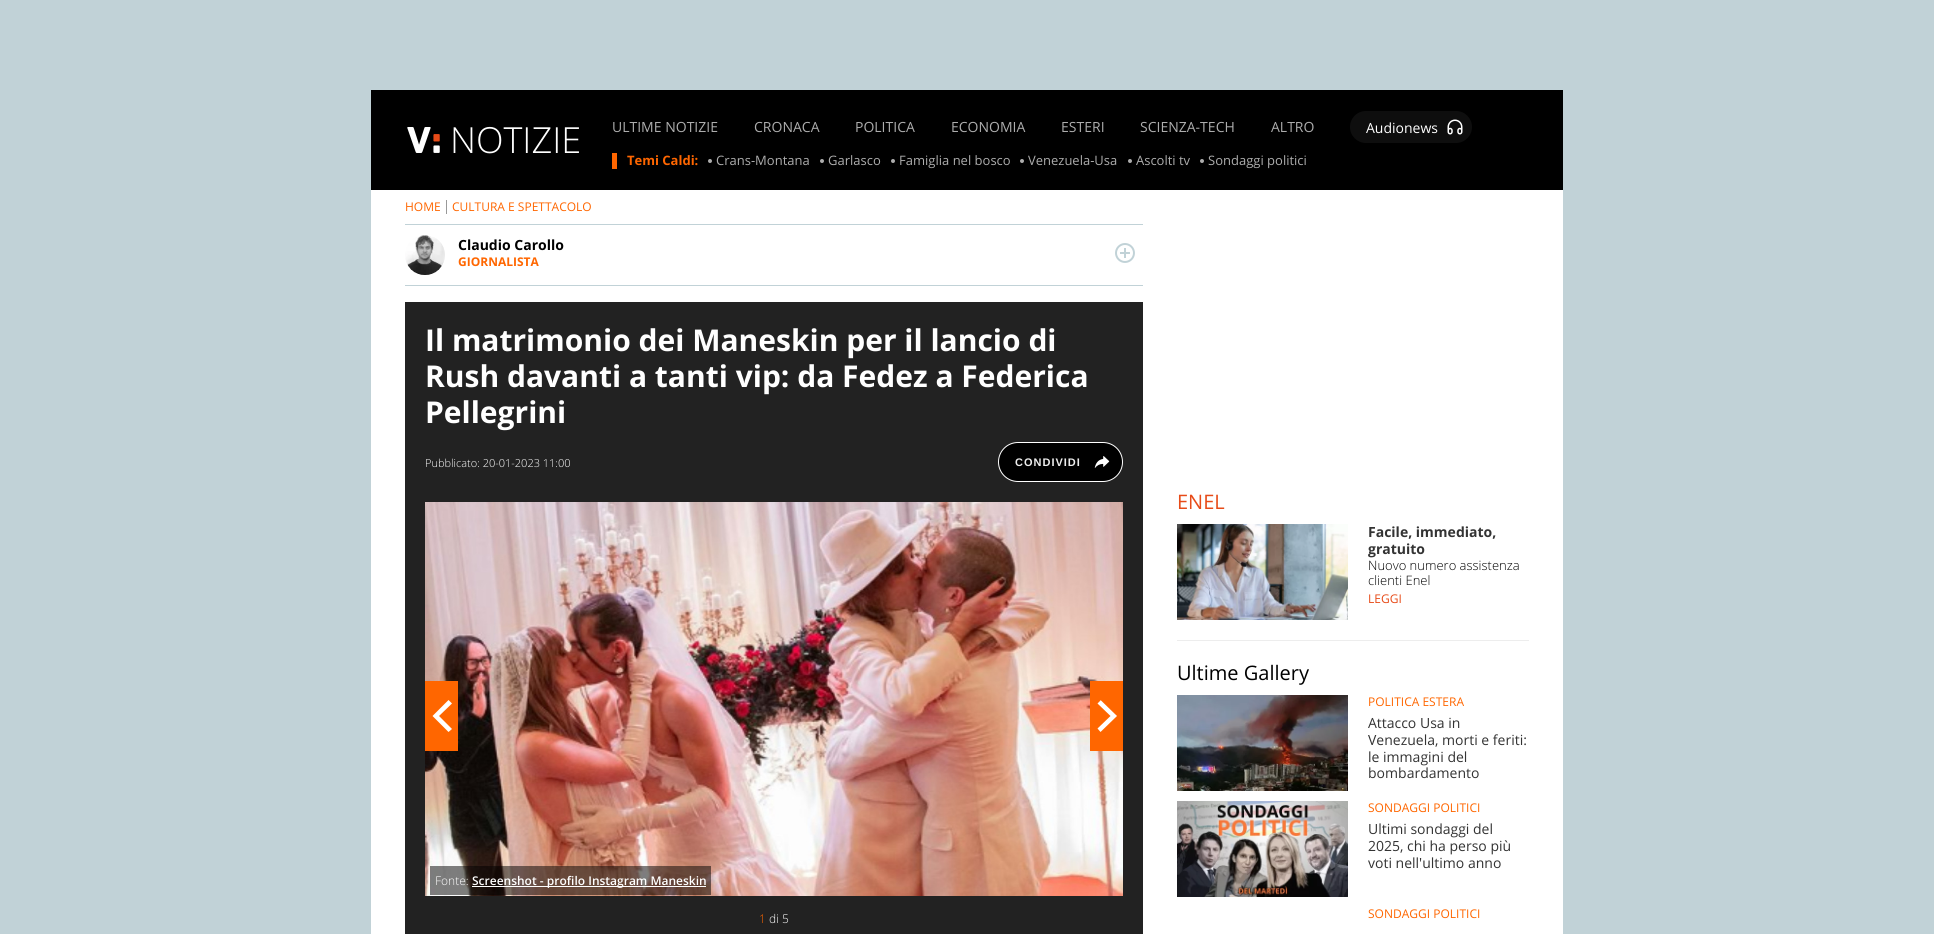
import math
import cairo

surface = cairo.ImageSurface(cairo.FORMAT_RGB24, 1934, 934)
ctx = cairo.Context(surface)
options = cairo.FontOptions()
options.set_hint_metrics(cairo.HINT_METRICS_OFF)
options.set_hint_style(cairo.HINT_STYLE_NONE)
ctx.set_font_options(options)
ctx.set_miter_limit(4)


def set_color(code):
    ctx.set_source_rgb(*(v / 255 for v in bytes.fromhex(code[-6:])))


def draw_text(x, y, s, family, size, color, bold=False, italic=False):
    ctx.select_font_face(family, cairo.FONT_SLANT_ITALIC if italic else cairo.FONT_SLANT_NORMAL, cairo.FONT_WEIGHT_BOLD if bold else cairo.FONT_WEIGHT_NORMAL)
    ctx.set_font_size(size)
    set_color(color)
    ctx.move_to(x, y)
    ctx.show_text(s)


def draw_spaced(x, y, s, letter, word):
    ctx.move_to(x, y)
    for ch in s:
        ctx.show_text(ch)
        ctx.rel_move_to(letter + word * (ch == ' '), 0)


def fill_rect(x, y, w, h, color):
    set_color(color)
    ctx.rectangle(x, y, w, h)
    ctx.fill()


def rounded_rect(x, y, w, h, r):
    ctx.new_sub_path()
    for i, (u, v) in enumerate([(x + w - r, y + h - r), (x + r, y + h - r), (x + r, y + r), (x + w - r, y + r)]):
        ctx.arc(u, v, r, i * math.pi / 2, (i + 1) * math.pi / 2)
    ctx.close_path()


def draw_image(path, x, y, w, h):
    ctx.save()
    ctx.set_source_surface(cairo.ImageSurface.create_from_png(path), x, y)
    ctx.rectangle(x, y, w, h)
    ctx.fill()
    ctx.restore()


set_color("#c1d2d7")
ctx.paint()
fill_rect(371, 190, 1192, 744, "#ffffff")
fill_rect(371, 90, 1192, 100, "#000000")
draw_image("assets/img1.png", 407, 127, 33, 26)
draw_text(450, 153, "NOTIZIE", "Open Sans Light", 36, "#ffffff")
draw_text(612, 132, "ULTIME NOTIZIE", "Open Sans", 14, "#adadad")
draw_text(754, 132, "CRONACA", "Open Sans", 14, "#adadad")
draw_text(855, 132, "POLITICA", "Open Sans", 14, "#adadad")
draw_text(951, 132, "ECONOMIA", "Open Sans", 14, "#adadad")
draw_text(1061, 132, "ESTERI", "Open Sans", 14, "#adadad")
draw_text(1140, 132, "SCIENZA-TECH", "Open Sans", 14, "#adadad")
draw_text(1271, 132, "ALTRO", "Open Sans", 14, "#adadad")
set_color("#0e0e0e")
rounded_rect(1350, 111, 122, 32, 16)
ctx.fill()
draw_text(1366, 133, "Audionews", "Open Sans", 14, "#ffffff")
draw_image("assets/img2.png", 1447, 119, 16, 16)
fill_rect(612, 153, 5, 16, "#ff6600")
draw_text(627, 165, "Temi Caldi:", "Open Sans", 13, "#ff6600", bold=True)
set_color("#adadad")
ctx.new_path()
ctx.arc(710, 161, 2, 0, 2 * math.pi)
ctx.fill()
draw_text(716, 165, "Crans-Montana", "Open Sans", 13, "#adadad")
ctx.new_path()
ctx.arc(822, 161, 2, 0, 2 * math.pi)
ctx.fill()
draw_text(828, 165, "Garlasco", "Open Sans", 13, "#adadad")
ctx.new_path()
ctx.arc(893, 161, 2, 0, 2 * math.pi)
ctx.fill()
draw_text(899, 165, "Famiglia nel bosco", "Open Sans", 13, "#adadad")
ctx.new_path()
ctx.arc(1022, 161, 2, 0, 2 * math.pi)
ctx.fill()
draw_text(1028, 165, "Venezuela-Usa", "Open Sans", 13, "#adadad")
ctx.new_path()
ctx.arc(1130, 161, 2, 0, 2 * math.pi)
ctx.fill()
draw_text(1136, 165, "Ascolti tv", "Open Sans", 13, "#adadad")
ctx.new_path()
ctx.arc(1202, 161, 2, 0, 2 * math.pi)
ctx.fill()
draw_text(1208, 165, "Sondaggi politici", "Open Sans", 13, "#adadad")
draw_text(405, 211, "HOME", "Open Sans", 12, "#ff6600")
fill_rect(446, 200, 1, 14, "#999999")
draw_text(452, 211, "CULTURA E SPETTACOLO", "Open Sans", 12, "#ff6600")
fill_rect(405, 224, 738, 1, "#c1d2d7")
fill_rect(405, 285, 738, 1, "#c1d2d7")
draw_image("assets/img3.png", 405, 235, 40, 40)
draw_text(458, 250, "Claudio Carollo", "Open Sans", 14, "#000000", bold=True)
draw_image("assets/img4.png", 1115, 243, 20, 20)
draw_text(458, 266, "GIORNALISTA", "Open Sans", 12, "#ff6600", bold=True)
fill_rect(405, 302, 738, 632, "#222222")
draw_text(425, 351, "Il matrimonio dei Maneskin per il lancio di", "Open Sans", 30, "#ffffff", bold=True)
draw_text(425, 387, "Rush davanti a tanti vip: da Fedez a Federica", "Open Sans", 30, "#ffffff", bold=True)
draw_text(425, 423, "Pellegrini", "Open Sans", 30, "#ffffff", bold=True)
draw_text(425, 467, "Pubblicato: 20-01-2023 11:00", "Open Sans Light", 11, "#ffffff")
set_color("#000000")
rounded_rect(998.5, 442.5, 124, 39, 19.5)
ctx.fill_preserve()
set_color("#ffffff")
ctx.set_line_width(1)
ctx.stroke()
ctx.select_font_face("Liberation Sans", cairo.FONT_SLANT_NORMAL, cairo.FONT_WEIGHT_BOLD)
set_color("#eeeeee")
draw_spaced(1015, 466, "CONDIVIDI", 1, 0)
draw_image("assets/img5.png", 1094, 456, 16, 12)
draw_image("assets/img6.png", 425, 502, 698, 394)
fill_rect(425, 681, 33, 70, "#ff6600")
set_color("#ffffff")
ctx.new_path()
ctx.move_to(448.5, 700)
ctx.line_to(452, 703.5)
ctx.line_to(439, 716)
ctx.line_to(452, 729)
ctx.line_to(448.5, 732)
ctx.line_to(432.5, 716)
ctx.close_path()
ctx.fill()
fill_rect(1090, 681, 33, 70, "#ff6600")
set_color("#ffffff")
ctx.new_path()
ctx.move_to(1100.5, 700)
ctx.line_to(1117, 716)
ctx.line_to(1100.5, 732)
ctx.line_to(1097.5, 728.5)
ctx.line_to(1110.5, 716)
ctx.line_to(1097.5, 703.5)
ctx.line_to(1101, 700)
ctx.close_path()
ctx.fill()
ctx.set_source_rgba(0, 0, 0, 0.5)
ctx.rectangle(430, 866, 281, 29)
ctx.fill()
draw_text(435, 885, "Fonte:", "Open Sans Light", 12, "#ffffff")
fill_rect(472, 886, 234, 1, "#ffffff")
draw_text(472, 885, "Screenshot - profilo Instagram Maneskin", "Open Sans SemiBold", 12, "#ffffff")
draw_text(759, 923, "1", "Open Sans Light", 12, "#ff6600")
draw_text(769, 923, "di 5", "Open Sans Light", 12, "#ffffff")
draw_text(1177, 509, "ENEL", "Open Sans", 20, "#e74b18")
draw_image("assets/img7.png", 1177, 524, 171, 96)
draw_text(1368, 537, "Facile, immediato,", "Open Sans", 14, "#333333", bold=True)
draw_text(1368, 554, "gratuito", "Open Sans", 14, "#333333", bold=True)
draw_text(1368, 570, "Nuovo numero assistenza", "Open Sans Light", 13, "#000000")
draw_text(1368, 585, "clienti Enel", "Open Sans Light", 13, "#000000")
draw_text(1368, 603, "LEGGI", "Open Sans", 12, "#e74b18")
fill_rect(1177, 640, 352, 1, "#ededed")
draw_text(1177, 680, "Ultime Gallery", "Open Sans", 20, "#000000")
draw_text(1368, 706, "POLITICA ESTERA", "Open Sans", 12, "#ff6600")
draw_image("assets/img8.png", 1177, 695, 171, 96)
draw_text(1368, 728, "Attacco Usa in", "Open Sans", 14, "#333333")
draw_text(1368, 745, "Venezuela, morti e feriti:", "Open Sans", 14, "#333333")
draw_text(1368, 762, "le immagini del", "Open Sans", 14, "#333333")
draw_text(1368, 778, "bombardamento", "Open Sans", 14, "#333333")
draw_text(1368, 812, "SONDAGGI POLITICI", "Open Sans", 12, "#ff6600")
draw_image("assets/img9.png", 1177, 801, 171, 96)
draw_text(1368, 834, "Ultimi sondaggi del", "Open Sans", 14, "#333333")
draw_text(1368, 851, "2025, chi ha perso più", "Open Sans", 14, "#333333")
draw_text(1368, 868, "voti nell'ultimo anno", "Open Sans", 14, "#333333")
draw_text(1368, 918, "SONDAGGI POLITICI", "Open Sans", 12, "#ff6600")
surface.write_to_png("output.png")
